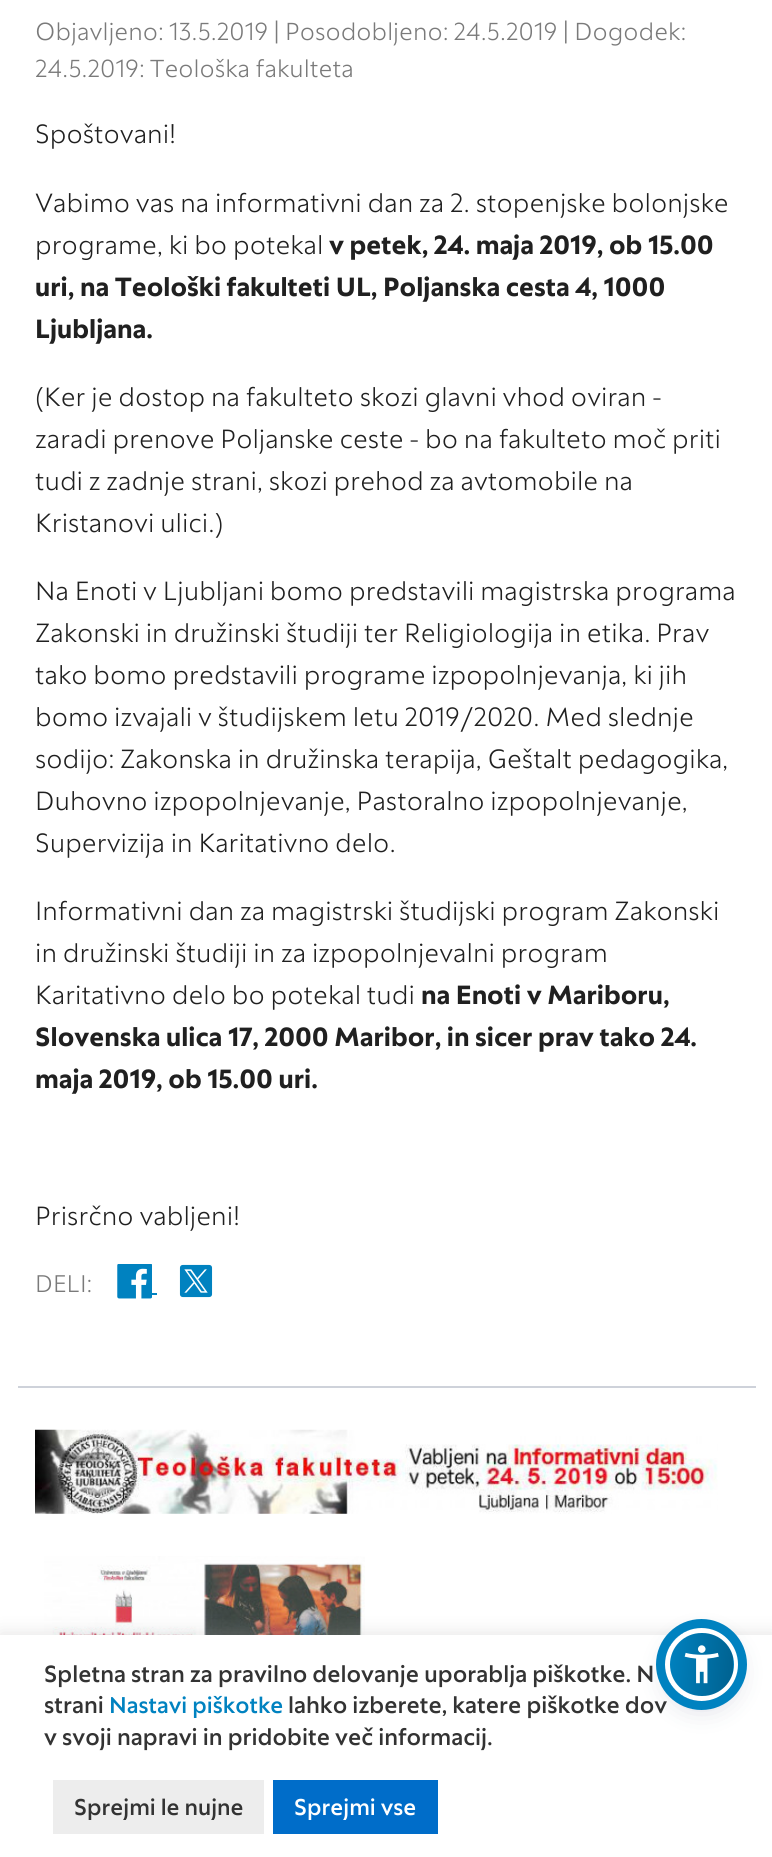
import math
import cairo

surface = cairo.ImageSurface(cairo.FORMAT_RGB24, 772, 1857)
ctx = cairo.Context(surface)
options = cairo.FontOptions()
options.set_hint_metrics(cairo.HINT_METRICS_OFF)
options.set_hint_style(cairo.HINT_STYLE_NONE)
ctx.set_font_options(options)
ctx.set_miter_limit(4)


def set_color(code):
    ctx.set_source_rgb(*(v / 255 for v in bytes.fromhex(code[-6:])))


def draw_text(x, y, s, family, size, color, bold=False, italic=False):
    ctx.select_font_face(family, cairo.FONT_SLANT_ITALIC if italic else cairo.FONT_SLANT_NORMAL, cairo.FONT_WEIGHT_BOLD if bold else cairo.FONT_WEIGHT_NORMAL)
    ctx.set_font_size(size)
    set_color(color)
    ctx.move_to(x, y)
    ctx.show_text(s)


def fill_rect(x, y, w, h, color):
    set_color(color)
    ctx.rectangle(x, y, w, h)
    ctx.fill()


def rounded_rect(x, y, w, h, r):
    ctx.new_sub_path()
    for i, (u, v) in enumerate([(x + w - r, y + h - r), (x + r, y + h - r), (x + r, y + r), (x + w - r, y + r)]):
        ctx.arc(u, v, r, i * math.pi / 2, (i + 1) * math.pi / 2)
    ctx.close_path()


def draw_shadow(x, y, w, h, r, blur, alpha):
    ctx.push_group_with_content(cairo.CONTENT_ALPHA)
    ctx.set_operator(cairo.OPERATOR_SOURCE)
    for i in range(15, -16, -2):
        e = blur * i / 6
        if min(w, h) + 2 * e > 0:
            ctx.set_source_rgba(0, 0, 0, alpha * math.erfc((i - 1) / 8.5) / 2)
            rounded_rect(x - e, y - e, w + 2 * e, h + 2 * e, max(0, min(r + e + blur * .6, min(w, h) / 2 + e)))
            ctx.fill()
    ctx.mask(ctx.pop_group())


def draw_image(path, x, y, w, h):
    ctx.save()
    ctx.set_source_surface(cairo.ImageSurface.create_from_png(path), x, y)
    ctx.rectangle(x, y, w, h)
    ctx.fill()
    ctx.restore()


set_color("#ffffff")
ctx.paint()
draw_text(35, 40, "Objavljeno: 13.5.2019 | Posodobljeno: 24.5.2019 | Dogodek:", "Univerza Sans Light", 24.5, "#7a7a7a")
draw_text(35, 77, "24.5.2019: Teološka fakulteta", "Univerza Sans Light", 24.5, "#7a7a7a")
draw_text(35, 143, "Spoštovani!", "Univerza Sans Light", 26.25, "#202020")
draw_text(35, 212, "Vabimo vas na informativni dan za 2. stopenjske bolonjske", "Univerza Sans Light", 26.25, "#202020")
draw_text(35, 254, "programe, ki bo potekal", "Univerza Sans Light", 26.25, "#202020")
draw_text(329, 254, "v petek, 24. maja 2019, ob 15.00", "Univerza Sans", 26.25, "#202020", bold=True)
draw_text(35, 296, "uri, na Teološki fakulteti UL, Poljanska cesta 4, 1000", "Univerza Sans", 26.25, "#202020", bold=True)
draw_text(35, 338, "Ljubljana.", "Univerza Sans", 26.25, "#202020", bold=True)
draw_text(35, 406, "(Ker je dostop na fakulteto skozi glavni vhod oviran -", "Univerza Sans Light", 26.25, "#202020")
draw_text(35, 448, "zaradi prenove Poljanske ceste - bo na fakulteto moč priti", "Univerza Sans Light", 26.25, "#202020")
draw_text(35, 490, "tudi z zadnje strani, skozi prehod za avtomobile na", "Univerza Sans Light", 26.25, "#202020")
draw_text(35, 532, "Kristanovi ulici.)", "Univerza Sans Light", 26.25, "#202020")
draw_text(35, 600, "Na Enoti v Ljubljani bomo predstavili magistrska programa", "Univerza Sans Light", 26.25, "#202020")
draw_text(35, 642, "Zakonski in družinski študiji ter Religiologija in etika. Prav", "Univerza Sans Light", 26.25, "#202020")
draw_text(35, 684, "tako bomo predstavili programe izpopolnjevanja, ki jih", "Univerza Sans Light", 26.25, "#202020")
draw_text(35, 726, "bomo izvajali v študijskem letu 2019/2020. Med slednje", "Univerza Sans Light", 26.25, "#202020")
draw_text(35, 768, "sodijo: Zakonska in družinska terapija, Geštalt pedagogika,", "Univerza Sans Light", 26.25, "#202020")
draw_text(35, 810, "Duhovno izpopolnjevanje, Pastoralno izpopolnjevanje,", "Univerza Sans Light", 26.25, "#202020")
draw_text(35, 852, "Supervizija in Karitativno delo.", "Univerza Sans Light", 26.25, "#202020")
draw_text(35, 920, "Informativni dan za magistrski študijski program Zakonski", "Univerza Sans Light", 26.25, "#202020")
draw_text(35, 962, "in družinski študiji in za izpopolnjevalni program", "Univerza Sans Light", 26.25, "#202020")
draw_text(35, 1004, "Karitativno delo bo potekal tudi", "Univerza Sans Light", 26.25, "#202020")
draw_text(421, 1004, "na Enoti v Mariboru,", "Univerza Sans", 26.25, "#202020", bold=True)
draw_text(35, 1046, "Slovenska ulica 17, 2000 Maribor, in sicer prav tako 24.", "Univerza Sans", 26.25, "#202020", bold=True)
draw_text(35, 1088, "maja 2019, ob 15.00 uri.", "Univerza Sans", 26.25, "#202020", bold=True)
draw_text(35, 1225, "Prisrčno vabljeni!", "Univerza Sans Light", 26.25, "#202020")
draw_text(35, 1292, "DELI:", "Univerza Sans Light", 24, "#7a7a7a")
draw_image("assets/img1.png", 117, 1264, 35, 35)
draw_image("assets/img2.png", 179, 1264, 34, 34)
fill_rect(152, 1293, 5, 2, "#0082c0")
fill_rect(18, 1386, 738, 2, "#ced2da")
draw_image("assets/img3.png", 35, 1429, 683, 85)
draw_image("assets/img4.png", 44, 1556, 321, 79)
set_color("#acabab")
draw_shadow(0, 1633, 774, 224, 0, 9, 0.3)
fill_rect(0, 1635, 772, 222, "#ffffff")
draw_text(44, 1682, "Spletna stran za pravilno delovanje uporablja piškotke. N", "Univerza Sans Medium", 23.3, "#333333")
draw_text(44, 1713, "strani", "Univerza Sans Medium", 23.3, "#333333")
draw_text(109, 1713, "Nastavi piškotke", "Univerza Sans Medium", 22.75, "#0082c0")
draw_text(288, 1713, "lahko izberete, katere piškotke dov", "Univerza Sans Medium", 23.3, "#333333")
draw_text(44, 1745, "v svoji napravi in pridobite več informacij.", "Univerza Sans Medium", 23.3, "#333333")
fill_rect(53, 1780, 211, 54, "#ededed")
draw_text(74, 1815, "Sprejmi le nujne", "Univerza Sans Medium", 22.75, "#333333")
fill_rect(273, 1780, 165, 54, "#006dc9")
draw_text(294, 1815, "Sprejmi vse", "Univerza Sans Medium", 22.75, "#ffffff")
set_color("#5d6494")
draw_shadow(665, 1631, 74, 74, 37, 3.5, 0.2)
set_color("#252c61")
draw_shadow(665, 1636, 74, 74, 37, 13, 0.15)
ctx.save()
rounded_rect(665, 1628, 74, 73, 36.5)
ctx.clip()
gradient = cairo.LinearGradient(667, 1661, 736, 1668)
gradient.add_color_stop_rgba(0, 0, 0.51, 0.753, 1)
gradient.add_color_stop_rgba(1, 0, 0.38, 0.561, 1)
ctx.set_source(gradient)
ctx.rectangle(670, 1633, 63, 63)
ctx.fill()
gradient = cairo.LinearGradient(730, 1661, 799, 1668)
gradient.add_color_stop_rgba(0, 0, 0.51, 0.753, 1)
gradient.add_color_stop_rgba(1, 0, 0.38, 0.561, 1)
ctx.set_source(gradient)
ctx.rectangle(733, 1652, 4, 31)
ctx.fill()
ctx.restore()
rounded_rect(667.5, 1630.5, 69, 68, 34)
set_color("#ffffff")
ctx.set_line_width(5)
ctx.stroke()
ctx.arc(701.5, 1664.5, 41, 0, 2 * math.pi)
set_color("#0082c0")
ctx.set_line_width(9)
ctx.stroke()
draw_image("assets/img5.png", 684, 1645, 35, 39)
surface.write_to_png("output.png")
